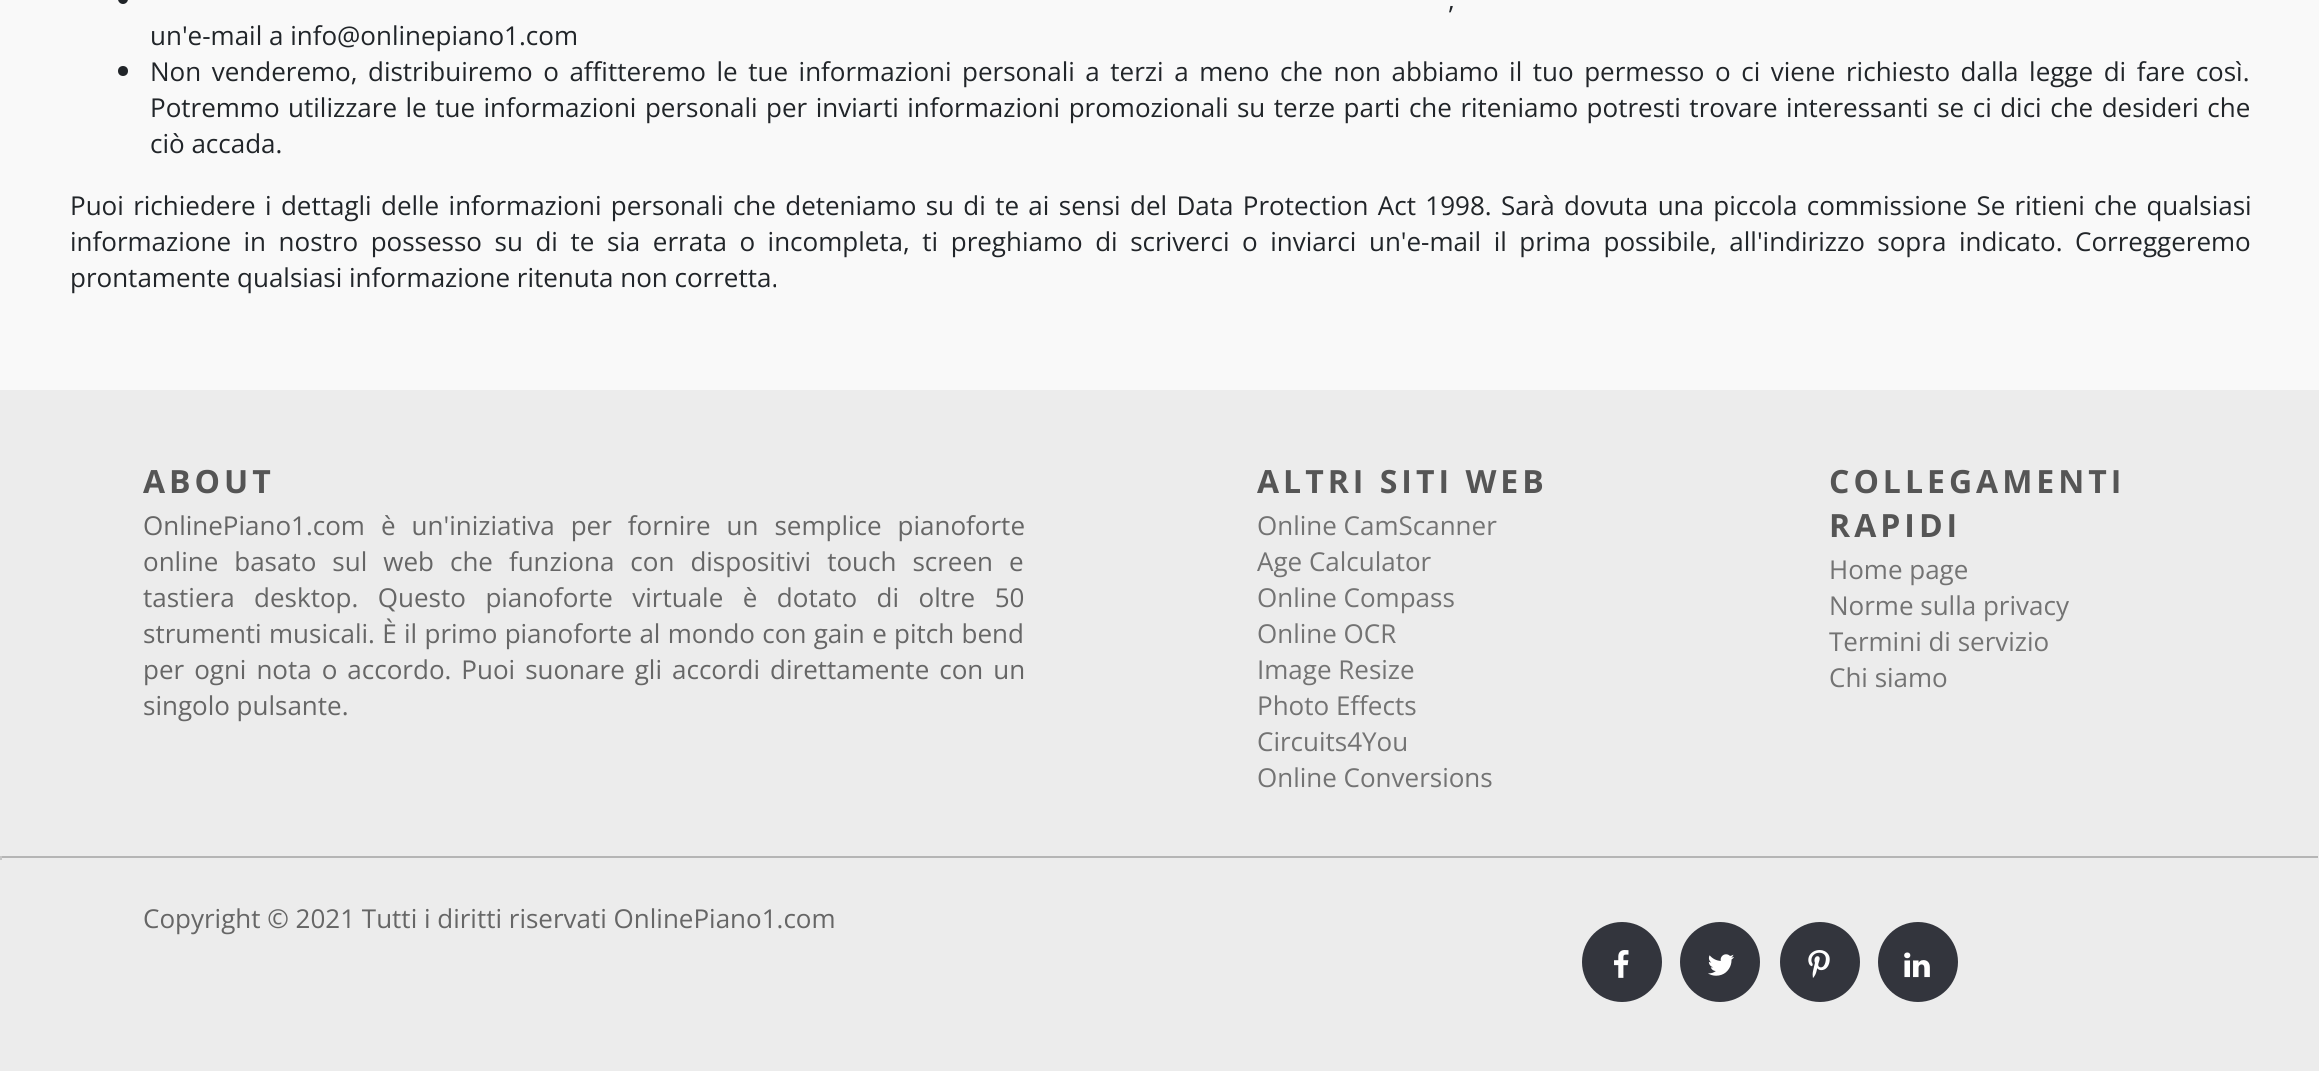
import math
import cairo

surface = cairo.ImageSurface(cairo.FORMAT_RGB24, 2319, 1071)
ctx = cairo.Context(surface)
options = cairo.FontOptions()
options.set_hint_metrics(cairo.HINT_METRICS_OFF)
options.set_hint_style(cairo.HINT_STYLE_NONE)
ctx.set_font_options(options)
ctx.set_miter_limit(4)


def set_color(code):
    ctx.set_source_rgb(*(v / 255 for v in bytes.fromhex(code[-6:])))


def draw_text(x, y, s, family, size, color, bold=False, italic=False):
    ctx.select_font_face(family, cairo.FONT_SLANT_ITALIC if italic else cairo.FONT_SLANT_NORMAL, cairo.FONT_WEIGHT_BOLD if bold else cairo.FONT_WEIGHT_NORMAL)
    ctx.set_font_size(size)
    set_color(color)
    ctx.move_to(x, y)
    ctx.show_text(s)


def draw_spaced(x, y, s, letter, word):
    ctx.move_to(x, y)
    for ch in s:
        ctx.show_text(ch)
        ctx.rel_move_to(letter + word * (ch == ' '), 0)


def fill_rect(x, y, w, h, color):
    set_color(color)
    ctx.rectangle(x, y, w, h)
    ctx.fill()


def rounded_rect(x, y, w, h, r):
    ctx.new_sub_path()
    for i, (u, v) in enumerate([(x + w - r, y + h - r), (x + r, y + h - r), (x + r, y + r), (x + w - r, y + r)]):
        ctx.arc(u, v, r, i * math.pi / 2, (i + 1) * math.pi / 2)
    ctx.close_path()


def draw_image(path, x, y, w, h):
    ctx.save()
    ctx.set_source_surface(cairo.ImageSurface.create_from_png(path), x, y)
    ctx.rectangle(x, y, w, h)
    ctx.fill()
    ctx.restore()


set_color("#f9f9f9")
ctx.paint()
set_color("#212529")
rounded_rect(118, -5, 10, 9, 5)
ctx.fill()
ctx.select_font_face("Open Sans")
ctx.set_font_size(26)
draw_spaced(1448, 9, ",", 0, 2)
draw_text(150, 45, "un'e-mail a info@onlinepiano1.com", "Open Sans", 26, "#212529")
ctx.new_path()
ctx.arc(123, 71, 5, 0, 2 * math.pi)
ctx.fill()
draw_spaced(150, 81, "Non venderemo, distribuiremo o affitteremo le tue informazioni personali a terzi a meno che non abbiamo il tuo permesso o ci viene richiesto dalla legge di fare così.", 0, 3.8)
draw_spaced(150, 117, "Potremmo utilizzare le tue informazioni personali per inviarti informazioni promozionali su terze parti che riteniamo potresti trovare interessanti se ci dici che desideri che", 0, 1.75)
draw_text(150, 153, "ciò accada.", "Open Sans", 26, "#212529")
draw_spaced(70, 215, "Puoi richiedere i dettagli delle informazioni personali che deteniamo su di te ai sensi del Data Protection Act 1998. Sarà dovuta una piccola commissione Se ritieni che qualsiasi", 0, 2.6)
draw_spaced(70, 251, "informazione in nostro possesso su di te sia errata o incompleta, ti preghiamo di scriverci o inviarci un'e-mail il prima possibile, all'indirizzo sopra indicato. Correggeremo", 0, 5.8)
draw_text(70, 287, "prontamente qualsiasi informazione ritenuta non corretta.", "Open Sans", 26, "#212529")
fill_rect(0, 390, 2319, 681, "#ececec")
ctx.select_font_face("Open Sans", cairo.FONT_SLANT_NORMAL, cairo.FONT_WEIGHT_BOLD)
ctx.set_font_size(32)
set_color("#555555")
draw_spaced(143, 493, "ABOUT", 4, 0)
ctx.select_font_face("Open Sans")
ctx.set_font_size(26)
set_color("#666666")
draw_spaced(143, 535, "OnlinePiano1.com è un'iniziativa per fornire un semplice pianoforte", 0, 9.25)
draw_spaced(143, 571, "online basato sul web che funziona con dispositivi touch screen e", 0, 9.25)
draw_spaced(143, 607, "tastiera desktop. Questo pianoforte virtuale è dotato di oltre 50", 0, 12.75)
draw_spaced(143, 643, "strumenti musicali. È il primo pianoforte al mondo con gain e pitch bend", 0, 0.6)
draw_spaced(143, 679, "per ogni nota o accordo. Puoi suonare gli accordi direttamente con un", 0, 3.25)
draw_text(143, 715, "singolo pulsante.", "Open Sans", 26, "#666666")
ctx.select_font_face("Open Sans", cairo.FONT_SLANT_NORMAL, cairo.FONT_WEIGHT_BOLD)
ctx.set_font_size(32)
set_color("#555555")
draw_spaced(1257, 493, "ALTRI SITI WEB", 4, 0)
draw_text(1257, 535, "Online CamScanner", "Open Sans", 26, "#737373")
draw_text(1257, 571, "Age Calculator", "Open Sans", 26, "#737373")
draw_text(1257, 607, "Online Compass", "Open Sans", 26, "#737373")
draw_text(1257, 643, "Online OCR", "Open Sans", 26, "#737373")
draw_text(1257, 679, "Image Resize", "Open Sans", 26, "#737373")
draw_text(1257, 715, "Photo Effects", "Open Sans", 26, "#737373")
draw_text(1257, 751, "Circuits4You", "Open Sans", 26, "#737373")
draw_text(1257, 787, "Online Conversions", "Open Sans", 26, "#737373")
ctx.select_font_face("Open Sans", cairo.FONT_SLANT_NORMAL, cairo.FONT_WEIGHT_BOLD)
ctx.set_font_size(32)
set_color("#555555")
draw_spaced(1829, 493, "COLLEGAMENTI", 4, 0)
draw_spaced(1829, 537, "RAPIDI", 4, 0)
draw_text(1829, 579, "Home page", "Open Sans", 26, "#737373")
draw_text(1829, 615, "Norme sulla privacy", "Open Sans", 26, "#737373")
draw_text(1829, 651, "Termini di servizio", "Open Sans", 26, "#737373")
draw_text(1829, 687, "Chi siamo", "Open Sans", 26, "#737373")
fill_rect(0, 856, 2319, 2, "#b5b5b5")
fill_rect(2318, 856, 1, 4, "#ededed")
fill_rect(0, 856, 2, 4, "#c6c6c6")
draw_text(143, 928, "Copyright © 2021 Tutti i diritti riservati OnlinePiano1.com", "Open Sans", 26, "#666666")
set_color("#33353d")
ctx.new_path()
ctx.arc(1622, 962, 40, 0, 2 * math.pi)
ctx.fill()
draw_image("assets/img1.png", 1614, 950, 15, 28)
ctx.arc(1720, 962, 40, 0, 2 * math.pi)
ctx.fill()
draw_image("assets/img2.png", 1708, 954, 26, 22)
ctx.arc(1820, 962, 40, 0, 2 * math.pi)
ctx.fill()
draw_image("assets/img3.png", 1808, 950, 22, 28)
ctx.arc(1918, 962, 40, 0, 2 * math.pi)
ctx.fill()
draw_image("assets/img4.png", 1904, 952, 26, 26)
surface.write_to_png("output.png")
